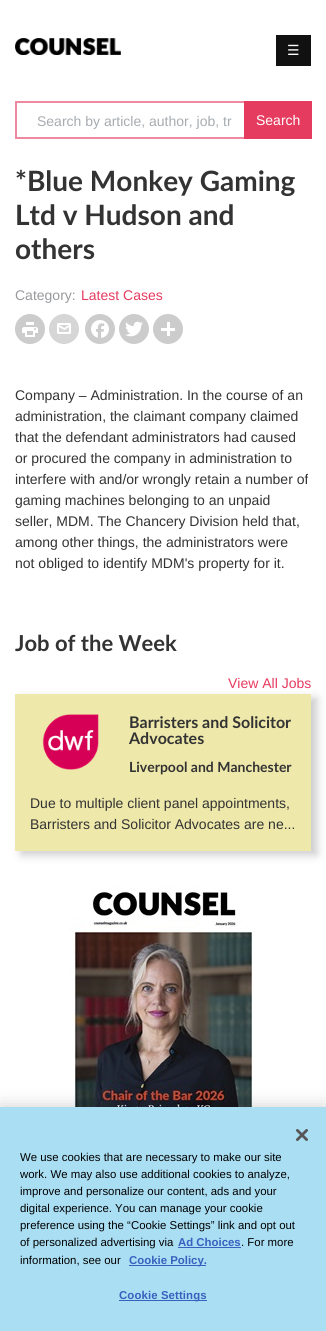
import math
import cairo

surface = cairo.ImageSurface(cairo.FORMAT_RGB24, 326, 1331)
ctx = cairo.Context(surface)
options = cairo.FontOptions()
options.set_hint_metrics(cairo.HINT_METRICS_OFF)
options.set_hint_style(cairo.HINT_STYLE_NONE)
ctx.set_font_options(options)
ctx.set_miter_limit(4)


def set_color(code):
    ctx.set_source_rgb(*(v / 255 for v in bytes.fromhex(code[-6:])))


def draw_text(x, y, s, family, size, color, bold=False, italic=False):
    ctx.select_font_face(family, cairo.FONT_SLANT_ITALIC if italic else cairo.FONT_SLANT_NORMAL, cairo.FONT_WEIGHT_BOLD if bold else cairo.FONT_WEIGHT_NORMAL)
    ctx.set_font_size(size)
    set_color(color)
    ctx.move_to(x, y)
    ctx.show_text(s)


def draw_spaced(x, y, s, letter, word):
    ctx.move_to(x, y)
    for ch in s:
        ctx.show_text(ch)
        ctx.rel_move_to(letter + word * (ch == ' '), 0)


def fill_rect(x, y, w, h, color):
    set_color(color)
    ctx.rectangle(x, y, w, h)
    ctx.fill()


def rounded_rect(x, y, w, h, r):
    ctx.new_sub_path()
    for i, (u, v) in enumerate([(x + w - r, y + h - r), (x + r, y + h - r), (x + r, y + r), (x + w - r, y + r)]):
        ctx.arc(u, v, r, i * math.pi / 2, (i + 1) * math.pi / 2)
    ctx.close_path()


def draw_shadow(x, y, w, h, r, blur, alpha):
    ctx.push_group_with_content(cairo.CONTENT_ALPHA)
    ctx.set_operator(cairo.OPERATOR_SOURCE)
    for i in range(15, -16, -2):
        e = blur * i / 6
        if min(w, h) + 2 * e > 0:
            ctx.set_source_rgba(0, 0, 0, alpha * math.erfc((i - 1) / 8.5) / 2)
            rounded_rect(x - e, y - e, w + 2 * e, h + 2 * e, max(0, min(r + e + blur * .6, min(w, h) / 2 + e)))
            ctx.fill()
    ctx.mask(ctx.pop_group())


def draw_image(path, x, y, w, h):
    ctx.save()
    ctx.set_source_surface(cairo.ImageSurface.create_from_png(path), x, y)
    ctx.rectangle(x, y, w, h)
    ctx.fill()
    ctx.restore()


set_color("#ffffff")
ctx.paint()
draw_image("assets/img1.png", 15, 38, 106, 17)
fill_rect(276, 35, 35, 31, "#111111")
draw_text(287, 55, "☰", "DejaVu Sans", 14, "#ffffff")
fill_rect(15, 101, 229, 2, "#ef899f")
fill_rect(15, 137, 229, 2, "#ef899f")
fill_rect(15, 101, 2, 38, "#ef899f")
draw_text(37, 126, "Search by article, author, job, tr", "Liberation Sans", 14, "#a7acb1")
fill_rect(244, 101, 68, 38, "#e53b5f")
draw_text(256, 125, "Search", "Liberation Sans", 14, "#ffffff")
draw_text(15, 191, "*Blue Monkey Gaming", "Lato", 28, "#333333", bold=True)
draw_text(15, 225, "Ltd v Hudson and", "Lato", 28, "#333333", bold=True)
draw_text(15, 259, "others", "Lato", 28, "#333333", bold=True)
draw_text(15, 300, "Category:", "Liberation Sans", 14, "#989a9d")
draw_text(81, 300, "Latest Cases", "Liberation Sans", 14, "#e53b5f")
draw_image("assets/img2.png", 15, 314, 30, 30)
draw_image("assets/img3.png", 49, 314, 30, 30)
set_color("#cccccc")
ctx.arc(100, 329, 15, 0, 2 * math.pi)
ctx.fill()
draw_image("assets/img4.png", 91, 320, 18, 18)
ctx.arc(134, 329, 15, 0, 2 * math.pi)
ctx.fill()
draw_image("assets/img5.png", 125, 321, 18, 16)
ctx.arc(168, 329, 15, 0, 2 * math.pi)
ctx.fill()
fill_rect(167, 322, 3, 14, "#ffffff")
fill_rect(161, 328, 14, 3, "#ffffff")
draw_text(15, 400, "Company – Administration. In the course of an", "Liberation Sans", 14, "#333333")
draw_text(15, 421, "administration, the claimant company claimed", "Liberation Sans", 14, "#333333")
draw_text(15, 442, "that the defendant administrators had caused", "Liberation Sans", 14, "#333333")
draw_text(15, 463, "or procured the company in administration to", "Liberation Sans", 14, "#333333")
draw_text(15, 484, "interfere with and/or wrongly retain a number of", "Liberation Sans", 14, "#333333")
draw_text(15, 505, "gaming machines belonging to an unpaid", "Liberation Sans", 14, "#333333")
draw_text(15, 526, "seller, MDM. The Chancery Division held that,", "Liberation Sans", 14, "#333333")
draw_text(15, 547, "among other things, the administrators were", "Liberation Sans", 14, "#333333")
draw_text(15, 568, "not obliged to identify MDM's property for it.", "Liberation Sans", 14, "#333333")
draw_text(15, 651, "Job of the Week", "Lato", 22, "#333333", bold=True)
set_color("#000000")
draw_shadow(21, 698, 296, 157, 0, 4.5, 0.2)
draw_text(228, 688, "View All Jobs", "Liberation Sans", 14, "#e53b5f")
fill_rect(15, 694, 296, 157, "#eee8aa")
draw_image("assets/img6.png", 42, 714, 57, 56)
draw_text(129, 728, "Barristers and Solicitor", "Lato", 16, "#333333", bold=True)
draw_text(129, 744, "Advocates", "Lato", 16, "#333333", bold=True)
draw_text(129, 772, "Liverpool and Manchester", "Lato", 14, "#333333", bold=True)
draw_text(30, 808, "Due to multiple client panel appointments,", "Liberation Sans", 14, "#333333")
draw_text(30, 829, "Barristers and Solicitor Advocates are ne...", "Liberation Sans", 14, "#333333")
draw_image("assets/img7.png", 69, 886, 184, 221)
set_color("#000000")
draw_shadow(0, 1107, 326, 224, 0, 9, 0.2)
fill_rect(0, 1107, 326, 224, "#aadef3")
draw_image("assets/img8.png", 296, 1129, 12, 12)
draw_text(20, 1161, "We use cookies that are necessary to make our site", "Liberation Sans", 11.4, "#000000")
draw_text(20, 1178, "work. We may also use additional cookies to analyze,", "Liberation Sans", 11.4, "#000000")
draw_text(20, 1195, "improve and personalize our content, ads and your", "Liberation Sans", 11.4, "#000000")
draw_text(20, 1212, "digital experience. You can manage your cookie", "Liberation Sans", 11.4, "#000000")
draw_text(20, 1229, "preference using the “Cookie Settings” link and opt out", "Liberation Sans", 11.4, "#000000")
draw_text(20, 1246, "of personalized advertising via", "Liberation Sans", 11.4, "#000000")
draw_text(178, 1246, "Ad Choices", "Liberation Sans", 11.4, "#3860be", bold=True)
fill_rect(178, 1247, 63, 1, "#3860be")
draw_text(241, 1246, ". For more", "Liberation Sans", 11.4, "#000000")
draw_text(20, 1264, "information, see our", "Liberation Sans", 11.4, "#000000")
fill_rect(129, 1265, 77, 1, "#3860be")
draw_text(129, 1264, "Cookie Policy.", "Liberation Sans", 11.4, "#3860be", bold=True)
fill_rect(119, 1300, 88, 1, "#3860be")
draw_spaced(119, 1299, "Cookie Settings", 0.1, 0)
surface.write_to_png("output.png")
